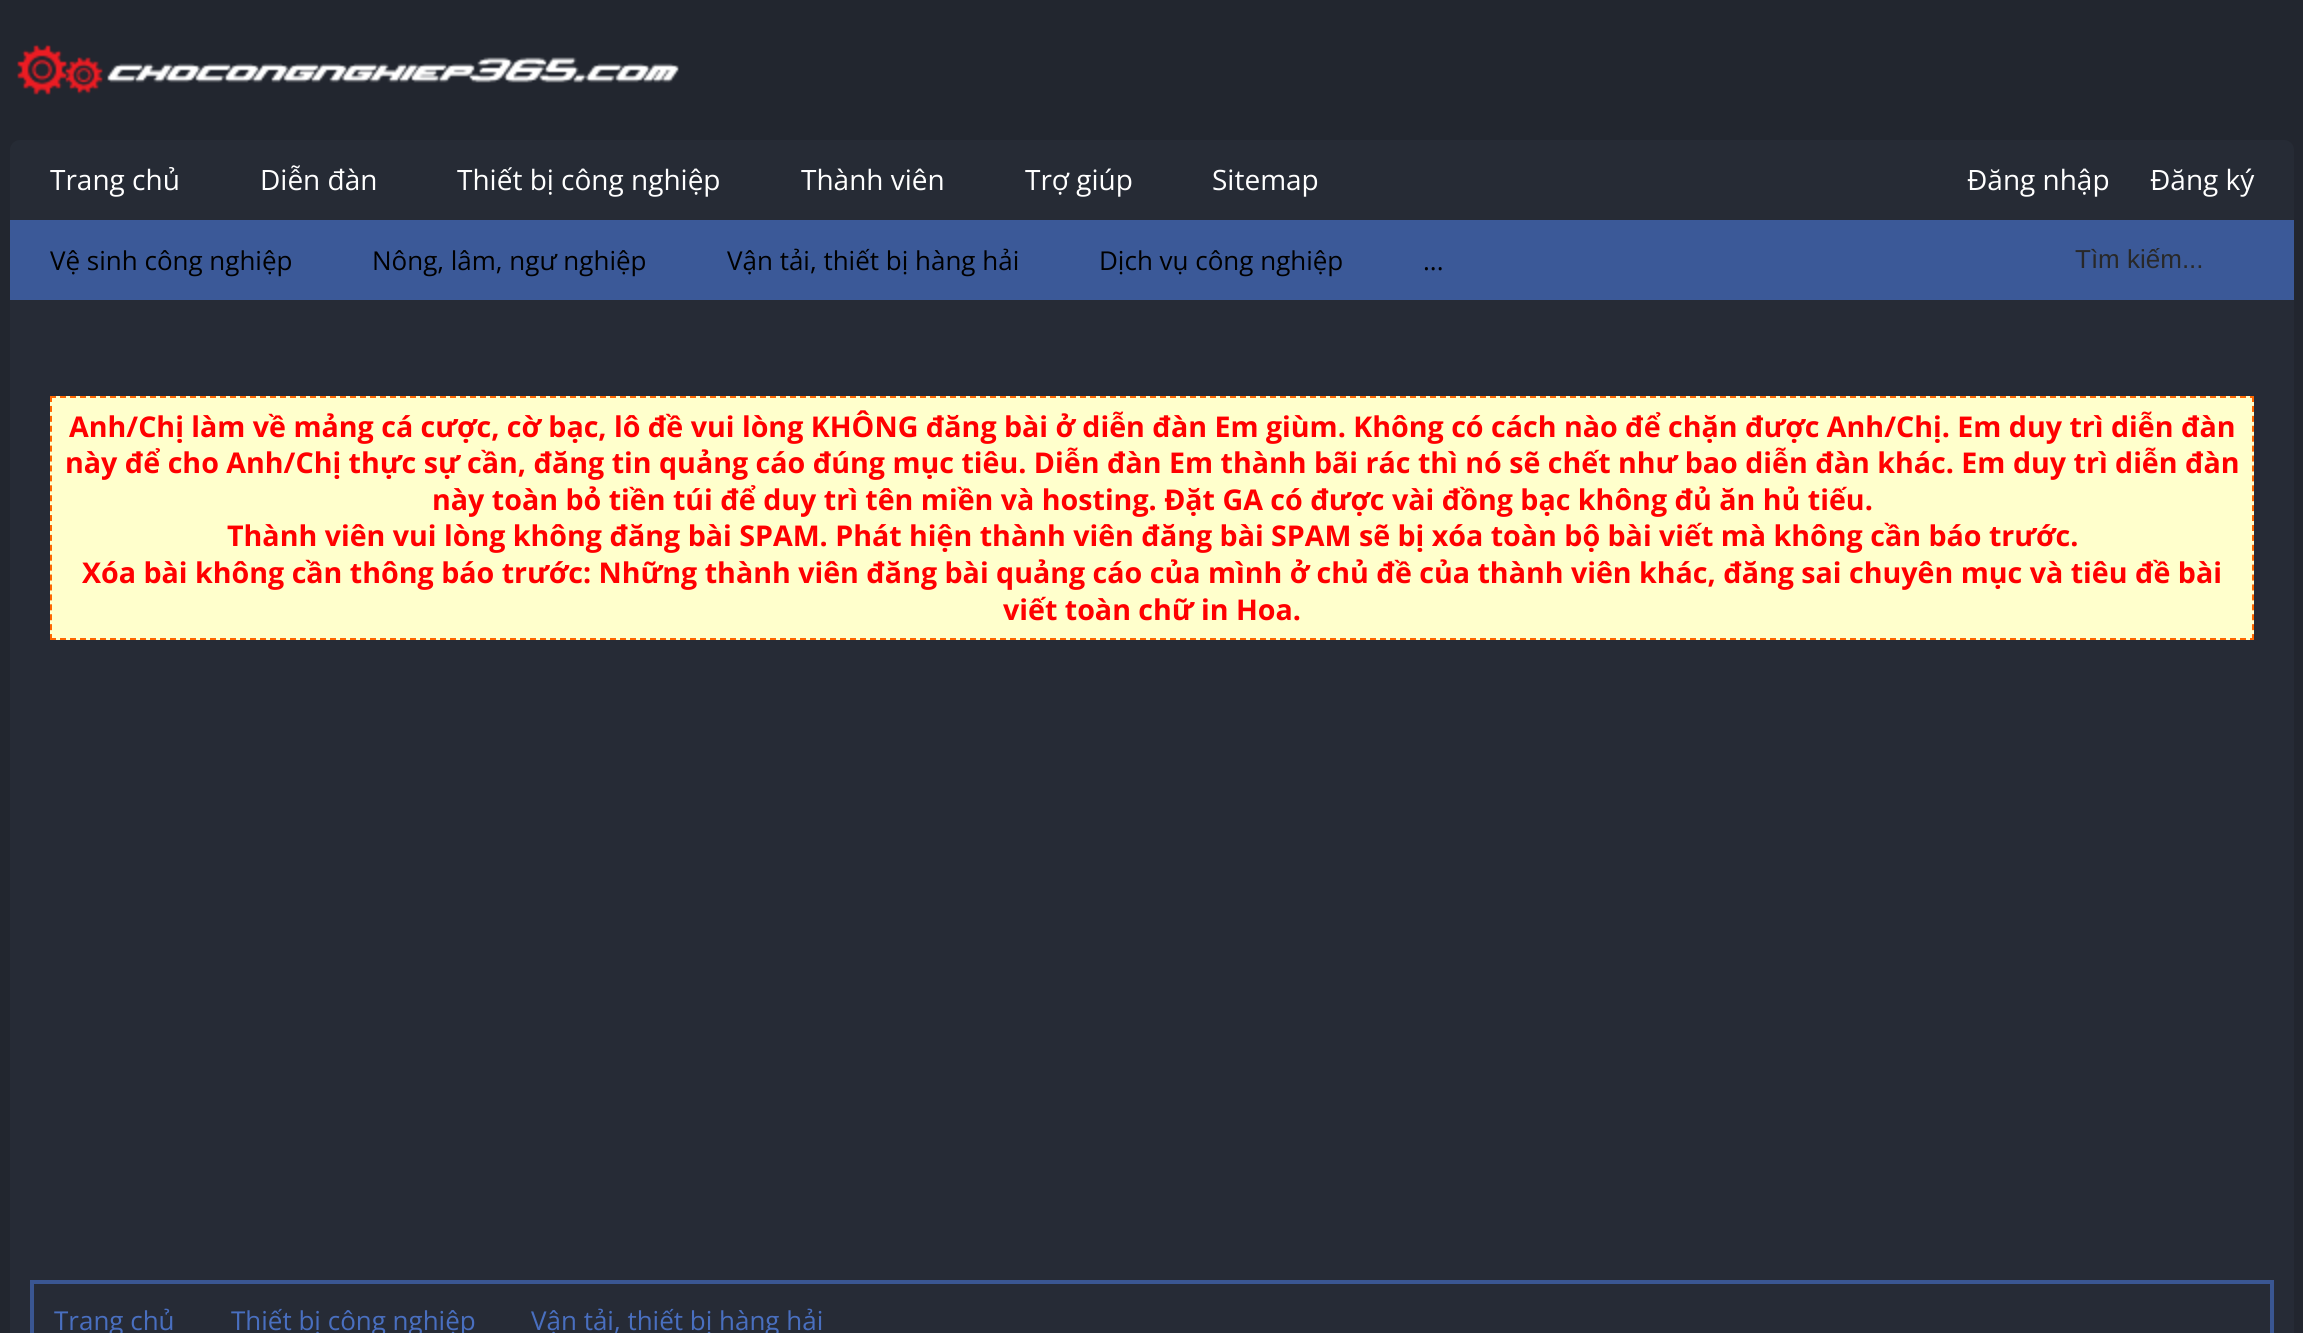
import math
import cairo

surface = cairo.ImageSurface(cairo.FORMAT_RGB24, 2303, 1333)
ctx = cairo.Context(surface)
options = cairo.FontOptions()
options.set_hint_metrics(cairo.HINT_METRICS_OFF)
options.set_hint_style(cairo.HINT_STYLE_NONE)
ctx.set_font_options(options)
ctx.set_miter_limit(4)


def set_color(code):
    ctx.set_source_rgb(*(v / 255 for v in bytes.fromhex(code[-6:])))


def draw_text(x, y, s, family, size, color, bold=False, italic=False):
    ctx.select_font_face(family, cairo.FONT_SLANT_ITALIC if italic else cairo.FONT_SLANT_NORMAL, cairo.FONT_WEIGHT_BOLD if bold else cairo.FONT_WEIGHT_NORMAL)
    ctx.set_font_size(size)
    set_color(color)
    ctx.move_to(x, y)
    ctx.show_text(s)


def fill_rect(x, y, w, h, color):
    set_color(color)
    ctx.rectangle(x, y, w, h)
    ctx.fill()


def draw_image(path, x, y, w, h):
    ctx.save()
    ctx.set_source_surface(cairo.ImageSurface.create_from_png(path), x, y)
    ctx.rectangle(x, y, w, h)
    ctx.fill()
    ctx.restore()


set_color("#22262f")
ctx.paint()
draw_image("assets/img1.png", 17, 44, 662, 51)
set_color("#262b35")
ctx.new_path()
ctx.move_to(20, 140)
ctx.line_to(2284, 140)
ctx.curve_to(2289.5, 140, 2294, 144.5, 2294, 150)
ctx.line_to(2294, 220)
ctx.line_to(10, 220)
ctx.line_to(10, 150)
ctx.curve_to(10, 144.5, 14.5, 140, 20, 140)
ctx.close_path()
ctx.fill()
draw_text(50, 190, "Trang chủ", "Open Sans", 28, "#ffffff")
draw_text(260, 190, "Diễn đàn", "Open Sans", 28, "#ffffff")
draw_text(457, 190, "Thiết bị công nghiệp", "Open Sans", 28, "#ffffff")
fill_rect(10, 220, 2284, 80, "#3b5998")
draw_text(50, 270, "Vệ sinh công nghiệp", "Open Sans", 26, "#000000")
draw_text(372, 270, "Nông, lâm, ngư nghiệp", "Open Sans", 26, "#000000")
draw_text(727, 270, "Vận tải, thiết bị hàng hải", "Open Sans", 26, "#000000")
draw_text(1099, 270, "Dịch vụ công nghiệp", "Open Sans", 26, "#000000")
draw_text(1423, 270, "...", "Open Sans", 26, "#000000")
draw_text(801, 190, "Thành viên", "Open Sans", 28, "#ffffff")
draw_text(1025, 190, "Trợ giúp", "Open Sans", 28, "#ffffff")
draw_text(1212, 190, "Sitemap", "Open Sans", 28, "#ffffff")
draw_text(1967, 190, "Đăng nhập", "Open Sans", 28, "#ffffff")
draw_text(2150, 190, "Đăng ký", "Open Sans", 28, "#ffffff")
draw_text(2075, 268, "Tìm kiếm...", "Liberation Sans", 26, "#282828")
fill_rect(10, 300, 2284, 1033, "#262b36")
fill_rect(50, 396, 2204, 244, "#ffffcc")
ctx.new_path()
ctx.move_to(50, 397)
ctx.line_to(2254, 397)
set_color("#ff6600")
ctx.set_dash([6, 4])
ctx.stroke()
ctx.new_path()
ctx.move_to(2253, 396)
ctx.line_to(2253, 640)
ctx.set_dash([6, 3.92])
ctx.stroke()
ctx.new_path()
ctx.move_to(50, 639)
ctx.line_to(2254, 639)
ctx.set_dash([6, 4])
ctx.stroke()
ctx.new_path()
ctx.move_to(51, 396)
ctx.line_to(51, 640)
ctx.set_dash([6, 3.92])
ctx.stroke()
draw_text(69, 437, "Anh/Chị làm về mảng cá cược, cờ bạc, lô đề vui lòng KHÔNG đăng bài ở diễn đàn Em giùm. Không có cách nào để chặn được Anh/Chị. Em duy trì diễn đàn", "Open Sans", 28.6, "#ff0000", bold=True)
draw_text(65, 473, "này để cho Anh/Chị thực sự cần, đăng tin quảng cáo đúng mục tiêu. Diễn đàn Em thành bãi rác thì nó sẽ chết như bao diễn đàn khác. Em duy trì diễn đàn", "Open Sans", 28.6, "#ff0000", bold=True)
draw_text(432, 510, "này toàn bỏ tiền túi để duy trì tên miền và hosting. Đặt GA có được vài đồng bạc không đủ ăn hủ tiếu.", "Open Sans", 28.6, "#ff0000", bold=True)
draw_text(227, 546, "Thành viên vui lòng không đăng bài SPAM. Phát hiện thành viên đăng bài SPAM sẽ bị xóa toàn bộ bài viết mà không cần báo trước.", "Open Sans", 28.6, "#ff0000", bold=True)
draw_text(82, 583, "Xóa bài không cần thông báo trước: Những thành viên đăng bài quảng cáo của mình ở chủ đề của thành viên khác, đăng sai chuyên mục và tiêu đề bài", "Open Sans", 28.6, "#ff0000", bold=True)
draw_text(1003, 620, "viết toàn chữ in Hoa.", "Open Sans", 28.6, "#ff0000", bold=True)
ctx.rectangle(32, 1282, 2240, 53)
set_color("#3a5692")
ctx.set_line_width(4)
ctx.set_dash([])
ctx.stroke()
draw_text(54, 1330, "Trang chủ", "Open Sans", 26, "#496fc0")
draw_text(231, 1330, "Thiết bị công nghiệp", "Open Sans", 26, "#496fc0")
draw_text(531, 1330, "Vận tải, thiết bị hàng hải", "Open Sans", 26, "#496fc0")
surface.write_to_png("output.png")
